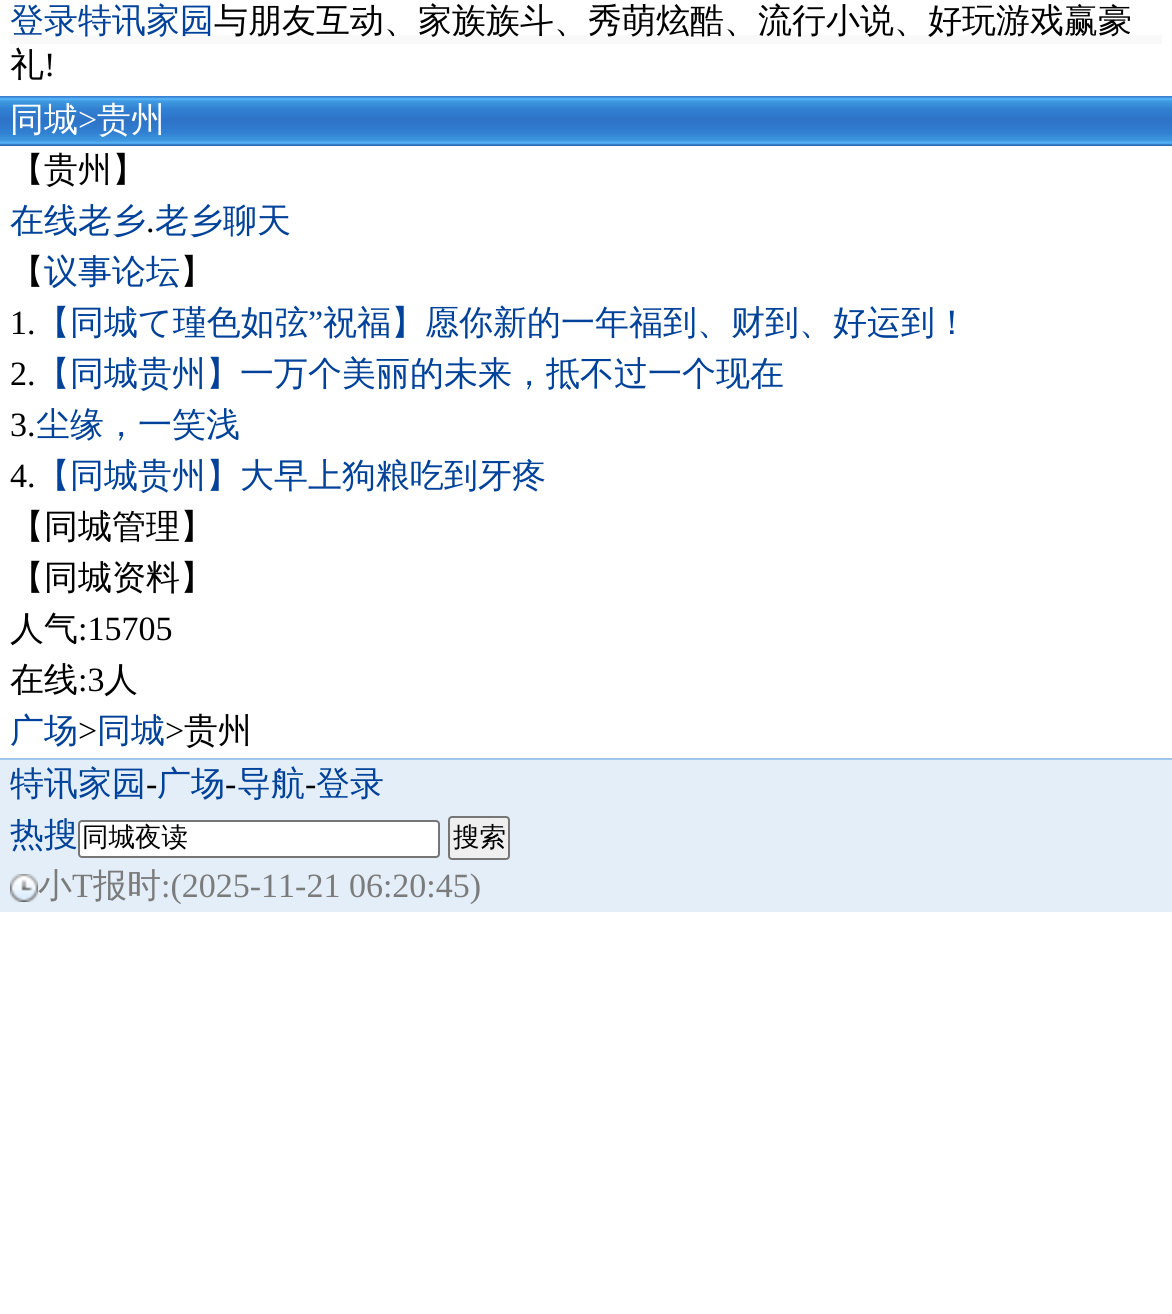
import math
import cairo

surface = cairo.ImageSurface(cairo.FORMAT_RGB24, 1172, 1314)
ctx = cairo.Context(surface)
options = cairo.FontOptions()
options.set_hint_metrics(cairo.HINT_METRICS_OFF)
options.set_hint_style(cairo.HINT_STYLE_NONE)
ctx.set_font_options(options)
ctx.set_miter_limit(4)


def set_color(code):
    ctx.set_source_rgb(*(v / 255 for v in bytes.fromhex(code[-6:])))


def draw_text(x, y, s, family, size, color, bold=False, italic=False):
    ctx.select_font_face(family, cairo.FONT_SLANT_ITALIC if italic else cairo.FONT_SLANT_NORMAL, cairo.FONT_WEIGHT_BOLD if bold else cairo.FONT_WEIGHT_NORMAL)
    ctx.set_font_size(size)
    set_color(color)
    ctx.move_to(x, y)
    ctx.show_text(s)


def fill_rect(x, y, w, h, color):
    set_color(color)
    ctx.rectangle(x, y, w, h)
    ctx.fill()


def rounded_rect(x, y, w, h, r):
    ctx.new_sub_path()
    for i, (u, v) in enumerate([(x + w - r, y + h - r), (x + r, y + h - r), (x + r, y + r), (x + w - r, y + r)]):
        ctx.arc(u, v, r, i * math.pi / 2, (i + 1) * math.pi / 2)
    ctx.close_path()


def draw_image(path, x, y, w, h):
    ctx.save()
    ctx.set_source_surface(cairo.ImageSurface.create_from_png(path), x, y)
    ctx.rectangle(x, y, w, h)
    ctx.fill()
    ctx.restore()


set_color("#ffffff")
ctx.paint()
fill_rect(10, 35, 1152, 9, "#f9f9f9")
draw_text(10, 32, "登录特讯家园", "WenQuanYi Zen Hei Medium", 34, "#004299")
draw_text(214, 32, "与朋友互动、家族族斗、秀萌炫酷、流行小说、好玩游戏赢豪", "WenQuanYi Zen Hei Medium", 34, "#000000")
draw_text(10, 76, "礼", "WenQuanYi Zen Hei Medium", 34, "#000000")
draw_text(44, 76, "!", "Liberation Serif", 34, "#000000")
draw_image("assets/img1.png", 0, 96, 1172, 50)
draw_text(10, 131, "同城", "WenQuanYi Zen Hei Medium", 34, "#ffffff")
draw_text(78, 131, ">", "Liberation Serif", 34, "#ffffff")
draw_text(97, 131, "贵州", "WenQuanYi Zen Hei Medium", 34, "#ffffff")
draw_text(10, 181, "【贵州】", "WenQuanYi Zen Hei Medium", 34, "#000000")
draw_text(10, 232, "在线老乡", "WenQuanYi Zen Hei Medium", 34, "#004299")
draw_text(146, 232, ".", "Liberation Serif", 34, "#000000")
draw_text(155, 232, "老乡聊天", "WenQuanYi Zen Hei Medium", 34, "#004299")
draw_text(10, 283, "【", "WenQuanYi Zen Hei Medium", 34, "#000000")
draw_text(44, 283, "议事论坛", "WenQuanYi Zen Hei Medium", 34, "#004299")
draw_text(180, 283, "】", "WenQuanYi Zen Hei Medium", 34, "#000000")
draw_text(10, 334, "1.", "Liberation Serif", 34, "#000000")
draw_text(36, 334, "【同城て瑾色如弦", "WenQuanYi Zen Hei Medium", 34, "#004299")
draw_text(308, 334, "”", "Liberation Serif", 34, "#004299")
draw_text(323, 334, "祝福】愿你新的一年福到、财到、好运到！", "WenQuanYi Zen Hei Medium", 34, "#004299")
draw_text(10, 385, "2.", "Liberation Serif", 34, "#000000")
draw_text(36, 385, "【同城贵州】一万个美丽的未来，抵不过一个现在", "WenQuanYi Zen Hei Medium", 34, "#004299")
draw_text(10, 436, "3.", "Liberation Serif", 34, "#000000")
draw_text(36, 436, "尘缘，一笑浅", "WenQuanYi Zen Hei Medium", 34, "#004299")
draw_text(10, 487, "4.", "Liberation Serif", 34, "#000000")
draw_text(36, 487, "【同城贵州】大早上狗粮吃到牙疼", "WenQuanYi Zen Hei Medium", 34, "#004299")
draw_text(10, 538, "【同城管理】", "WenQuanYi Zen Hei Medium", 34, "#000000")
draw_text(10, 589, "【同城资料】", "WenQuanYi Zen Hei Medium", 34, "#000000")
draw_text(10, 640, "人气", "WenQuanYi Zen Hei Medium", 34, "#000000")
draw_text(78, 640, ":15705", "Liberation Serif", 34, "#000000")
draw_text(10, 691, "在线", "WenQuanYi Zen Hei Medium", 34, "#000000")
draw_text(78, 691, ":3", "Liberation Serif", 34, "#000000")
draw_text(104, 691, "人", "WenQuanYi Zen Hei Medium", 34, "#000000")
draw_text(10, 742, "广场", "WenQuanYi Zen Hei Medium", 34, "#004299")
draw_text(78, 742, ">", "Liberation Serif", 34, "#000000")
draw_text(97, 742, "同城", "WenQuanYi Zen Hei Medium", 34, "#004299")
draw_text(165, 742, ">", "Liberation Serif", 34, "#000000")
draw_text(184, 742, "贵州", "WenQuanYi Zen Hei Medium", 34, "#000000")
fill_rect(0, 760, 1172, 152, "#e3eef8")
fill_rect(0, 758, 1172, 2, "#9fc6ec")
draw_text(10, 795, "特讯家园", "WenQuanYi Zen Hei Medium", 34, "#004299")
draw_text(146, 795, "-", "Liberation Serif", 34, "#000000")
draw_text(157, 795, "广场", "WenQuanYi Zen Hei Medium", 34, "#004299")
draw_text(225, 795, "-", "Liberation Serif", 34, "#000000")
draw_text(237, 795, "导航", "WenQuanYi Zen Hei Medium", 34, "#004299")
draw_text(305, 795, "-", "Liberation Serif", 34, "#000000")
draw_text(316, 795, "登录", "WenQuanYi Zen Hei Medium", 34, "#004299")
draw_text(10, 846, "热搜", "WenQuanYi Zen Hei Medium", 34, "#004299")
set_color("#ffffff")
rounded_rect(79, 821, 360, 36, 3)
ctx.fill_preserve()
set_color("#767676")
ctx.stroke()
draw_text(82, 846, "同城夜读", "WenQuanYi Zen Hei Medium", 26.5, "#000000")
set_color("#efefef")
rounded_rect(449, 817, 60, 42, 3)
ctx.fill_preserve()
set_color("#767676")
ctx.stroke()
draw_text(453, 846, "搜索", "WenQuanYi Zen Hei Medium", 26.5, "#000000")
draw_image("assets/img2.png", 10, 874, 28, 28)
draw_text(38, 897, "小", "WenQuanYi Zen Hei Medium", 34, "#7b7b7b")
draw_text(72, 897, "T", "Liberation Serif", 34, "#7b7b7b")
draw_text(93, 897, "报时", "WenQuanYi Zen Hei Medium", 34, "#7b7b7b")
draw_text(161, 897, ":(2025-11-21 06:20:45)", "Liberation Serif", 34, "#7b7b7b")
surface.write_to_png("output.png")
